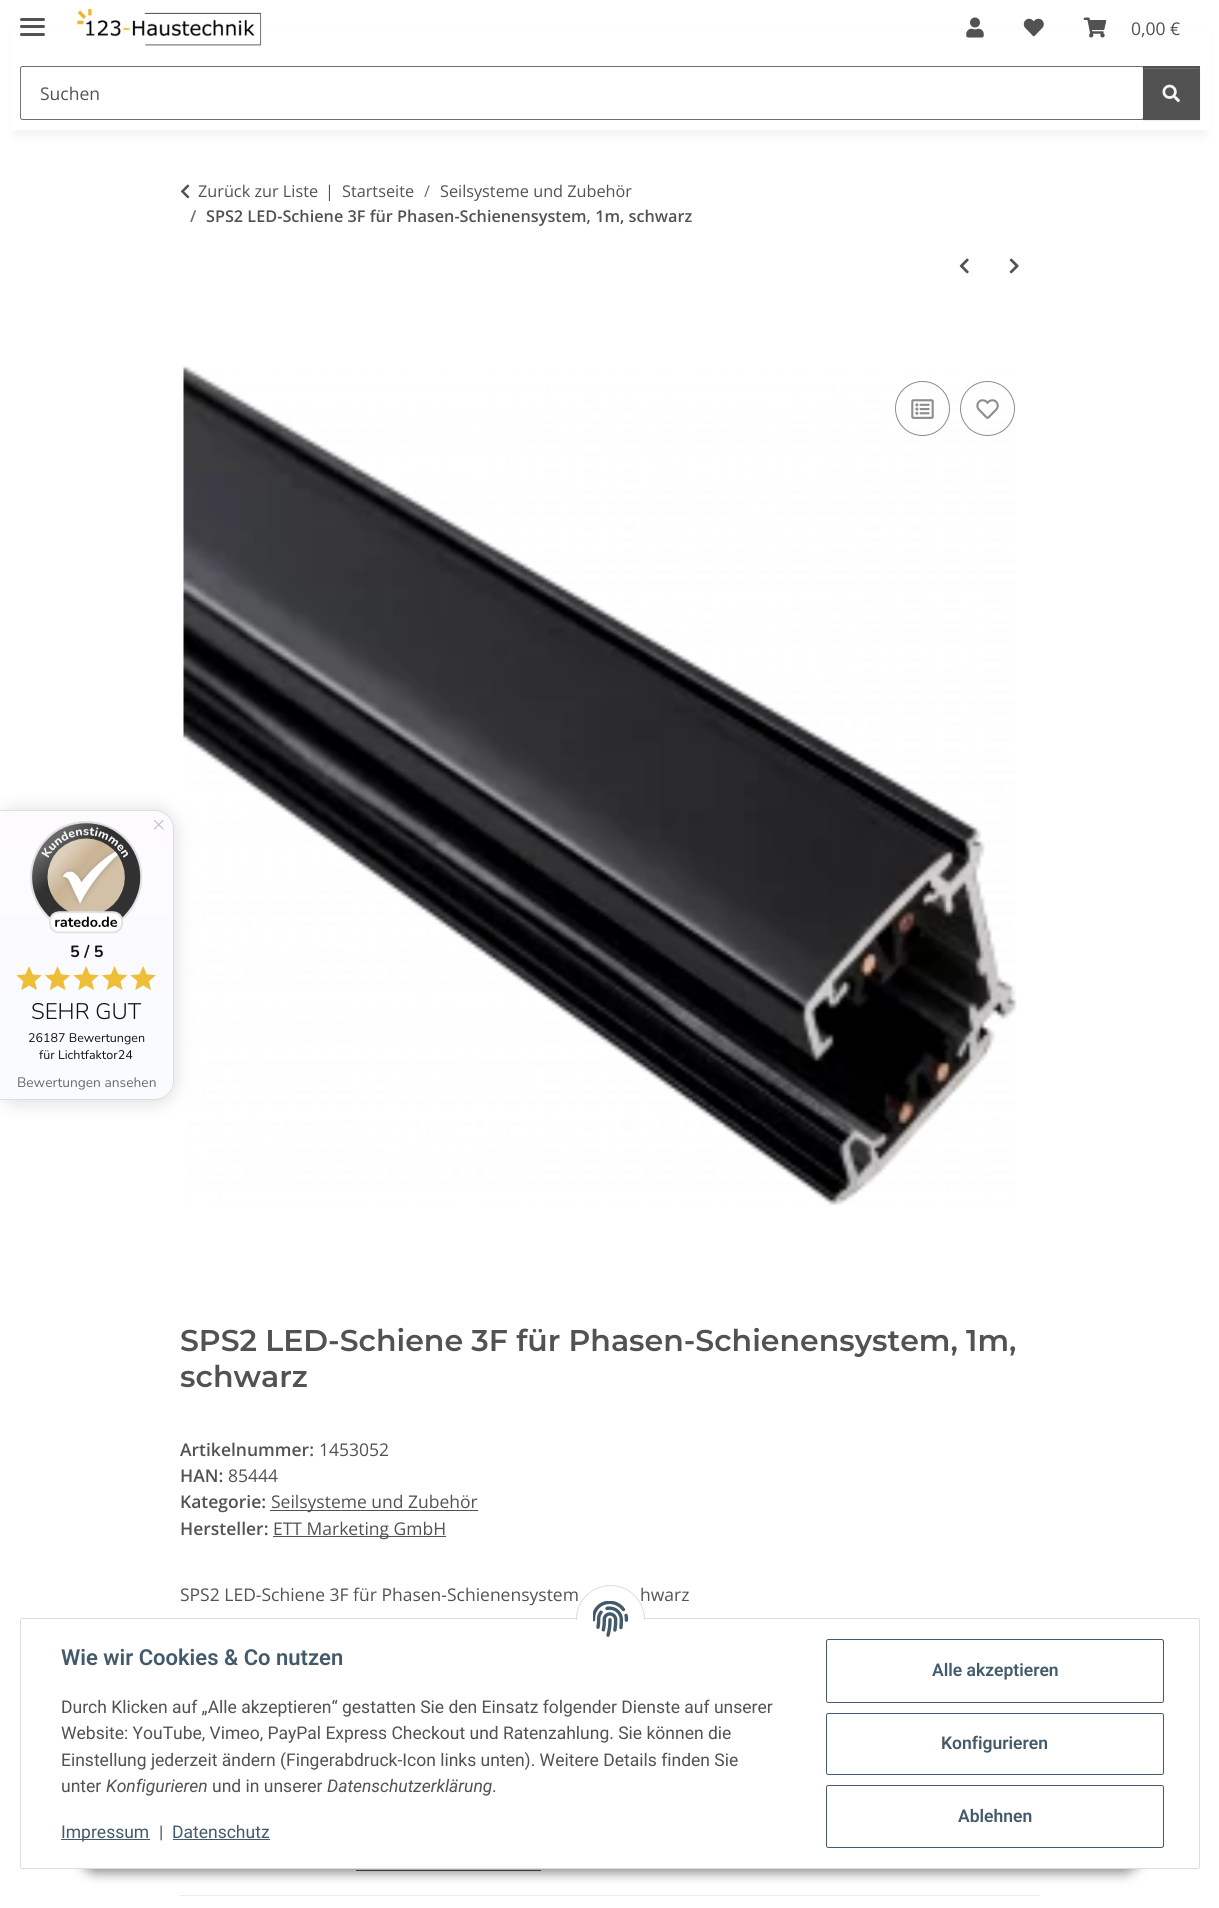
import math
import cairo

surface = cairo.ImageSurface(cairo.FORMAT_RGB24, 1219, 1908)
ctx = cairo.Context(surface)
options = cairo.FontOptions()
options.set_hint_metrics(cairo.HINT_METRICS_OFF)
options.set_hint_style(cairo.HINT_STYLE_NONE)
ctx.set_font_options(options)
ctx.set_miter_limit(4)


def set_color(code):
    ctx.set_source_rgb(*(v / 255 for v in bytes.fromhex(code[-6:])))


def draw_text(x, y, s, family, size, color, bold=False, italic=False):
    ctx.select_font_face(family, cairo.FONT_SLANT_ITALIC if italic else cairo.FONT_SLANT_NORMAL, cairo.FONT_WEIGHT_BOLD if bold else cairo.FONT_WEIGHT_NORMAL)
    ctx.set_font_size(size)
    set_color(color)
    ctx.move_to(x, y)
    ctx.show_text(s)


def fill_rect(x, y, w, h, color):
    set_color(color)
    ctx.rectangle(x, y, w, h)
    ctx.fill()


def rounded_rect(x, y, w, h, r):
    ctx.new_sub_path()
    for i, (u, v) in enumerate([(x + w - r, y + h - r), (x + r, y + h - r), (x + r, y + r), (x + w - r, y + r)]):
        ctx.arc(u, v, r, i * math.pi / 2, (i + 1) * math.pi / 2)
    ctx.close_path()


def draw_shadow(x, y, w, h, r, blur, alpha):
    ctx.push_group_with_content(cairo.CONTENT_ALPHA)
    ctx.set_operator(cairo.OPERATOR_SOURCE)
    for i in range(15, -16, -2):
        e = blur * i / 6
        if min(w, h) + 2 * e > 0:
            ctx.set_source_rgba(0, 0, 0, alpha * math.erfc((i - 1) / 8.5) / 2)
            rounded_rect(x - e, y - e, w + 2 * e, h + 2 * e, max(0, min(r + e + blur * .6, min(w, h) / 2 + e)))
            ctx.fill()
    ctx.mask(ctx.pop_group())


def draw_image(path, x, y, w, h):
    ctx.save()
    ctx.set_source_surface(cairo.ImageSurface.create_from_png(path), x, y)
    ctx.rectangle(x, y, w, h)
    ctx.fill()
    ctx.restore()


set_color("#ffffff")
ctx.paint()
set_color("#000000")
draw_shadow(15, 35, 1190, 100, 0, 5.5, 0.06)
fill_rect(10, 30, 1200, 100, "#ffffff")
set_color("#525252")
rounded_rect(20, 25, 25, 3, 1.5)
ctx.fill()
rounded_rect(20, 18, 25, 3, 1.5)
ctx.fill()
rounded_rect(20, 33, 25, 3, 1.5)
ctx.fill()
draw_image("assets/img1.png", 77, 8, 185, 38)
draw_image("assets/img2.png", 966, 17, 18, 21)
draw_image("assets/img3.png", 1023, 18, 21, 19)
draw_image("assets/img4.png", 1083, 17, 24, 21)
draw_text(1131, 35, "0,00 €", "Open Sans", 17.5, "#525252")
rounded_rect(20.5, 66.5, 1123, 53, 2)
set_color("#707070")
ctx.set_line_width(1)
ctx.stroke()
draw_text(40, 100, "Suchen", "Open Sans", 17.5, "#525252")
set_color("#000000")
draw_shadow(1143, 68, 57, 53, 0, 0.5, 0.07)
fill_rect(1143, 66, 57, 54, "#525252")
fill_rect(1144, 68, 55, 1, "#6c6c6c")
draw_image("assets/img5.png", 1162, 84, 18, 19)
draw_image("assets/img12.png", 183, 365, 834, 841)
set_color("#000000")
draw_shadow(-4, 809, 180, 295, 21, 9.5, 0.12)
ctx.save()
ctx.new_path()
ctx.move_to(-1, 810)
ctx.line_to(155, 810)
ctx.curve_to(165.5, 810, 174, 818.5, 174, 829)
ctx.line_to(174, 1081)
ctx.curve_to(174, 1091.5, 165.5, 1100, 155, 1100)
ctx.line_to(-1, 1100)
ctx.close_path()
ctx.clip()
gradient = cairo.LinearGradient(86, 1098, 86, 811)
gradient.add_color_stop_rgba(0, 0.976, 0.984, 1, 1)
gradient.add_color_stop_rgba(1, 0.992, 0.984, 1, 1)
ctx.set_source(gradient)
ctx.rectangle(0, 811, 174, 288)
ctx.fill()
ctx.restore()
ctx.new_path()
ctx.move_to(-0.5, 810.5)
ctx.line_to(155, 810.5)
ctx.curve_to(165, 810.5, 173.5, 819, 173.5, 829)
ctx.line_to(173.5, 1081)
ctx.curve_to(173.5, 1091, 165, 1099.5, 155, 1099.5)
ctx.line_to(-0.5, 1099.5)
ctx.close_path()
set_color("#dddddd")
ctx.stroke()
draw_image("assets/img6.png", 154, 820, 10, 10)
draw_image("assets/img7.png", 30, 821, 113, 113)
draw_text(70, 957, "5 / 5", "Nunito", 16.25, "#121212", bold=True)
draw_image("assets/img8.png", 16, 966, 140, 24)
draw_text(31, 1019, "SEHR GUT", "Nunito Light", 22.5, "#121212")
draw_text(28, 1042, "26187 Bewertungen", "Nunito", 12.5, "#121212")
draw_text(39, 1059, "für Lichtfaktor24", "Nunito", 12.5, "#121212")
draw_text(17, 1087, "Bewertungen ansehen", "Nunito", 13.75, "#696969")
draw_image("assets/img9.png", 180, 184, 10, 15)
draw_text(198, 197, "Zurück zur Liste", "Open Sans", 16.25, "#525252")
draw_text(325, 197, "|", "Open Sans", 16.25, "#525252")
draw_text(342, 197, "Startseite", "Open Sans", 16.25, "#525252")
draw_text(424, 197, "/", "Open Sans", 16.25, "#707070")
draw_text(440, 197, "Seilsysteme und Zubehör", "Open Sans", 16.25, "#525252")
draw_text(190, 222, "/", "Open Sans SemiBold", 16.25, "#707070")
draw_text(206, 222, "SPS2 LED-Schiene 3F für Phasen-Schienensystem, 1m, schwarz", "Open Sans SemiBold", 16.25, "#525252")
draw_image("assets/img10.png", 959, 258, 10, 16)
draw_image("assets/img11.png", 1009, 258, 10, 16)
ctx.arc(922.5, 408.5, 27, 0, 2 * math.pi)
set_color("#8c8c8c")
ctx.stroke()
draw_image("assets/img13.png", 911, 399, 23, 20)
ctx.arc(987.5, 408.5, 27, 0, 2 * math.pi)
set_color("#8d8d8d")
ctx.stroke()
draw_image("assets/img14.png", 976, 399, 23, 20)
draw_text(180, 1351, "SPS2 LED-Schiene 3F für Phasen-Schienensystem, 1m,", "Montserrat SemiBold", 30, "#525252")
draw_text(180, 1387, "schwarz", "Montserrat SemiBold", 30, "#525252")
draw_text(180, 1456, "Artikelnummer:", "Open Sans SemiBold", 17.5, "#525252")
draw_text(319, 1456, "1453052", "Open Sans", 17.5, "#525252")
draw_text(180, 1482, "HAN:", "Open Sans SemiBold", 17.5, "#525252")
draw_text(228, 1482, "85444", "Open Sans", 17.5, "#525252")
draw_text(180, 1508, "Kategorie:", "Open Sans SemiBold", 17.5, "#525252")
fill_rect(270, 1510, 208, 1, "#525252")
draw_text(271, 1508, "Seilsysteme und Zubehör", "Open Sans", 17.5, "#525252")
draw_text(180, 1535, "Hersteller:", "Open Sans SemiBold", 17.5, "#525252")
fill_rect(273, 1536, 173, 1, "#525252")
draw_text(273, 1535, "ETT Marketing GmbH", "Open Sans", 17.5, "#525252")
draw_text(180, 1601, "SPS2 LED-Schiene 3F für Phasen-Schienensystem", "Open Sans", 17.5, "#525252")
draw_text(640, 1601, "hwarz", "Open Sans", 17.5, "#525252")
fill_rect(180, 1895, 860, 1, "#ebebeb")
fill_rect(356, 1870, 185, 1, "#525252")
set_color("#000000")
draw_shadow(80, 1833, 1060, 40, 20, 6, 0.45)
set_color("#ffffff")
rounded_rect(20.5, 1618.5, 1179, 250, 2)
ctx.fill_preserve()
set_color("#dddddd")
ctx.stroke()
set_color("#ffffff")
ctx.arc(610.5, 1619.5, 34, 0, 2 * math.pi)
ctx.fill_preserve()
set_color("#dddddd")
ctx.stroke()
fill_rect(576, 1620, 69, 34, "#ffffff")
draw_image("assets/img15.png", 593, 1601, 36, 36)
draw_text(61, 1665, "Wie wir Cookies & Co nutzen", "Roboto SemiBold", 22, "#435a6b")
draw_text(61, 1713, "Durch Klicken auf „Alle akzeptieren“ gestatten Sie den Einsatz folgender Dienste auf unserer", "Roboto", 17.5, "#525252")
draw_text(61, 1739, "Website: YouTube, Vimeo, PayPal Express Checkout und Ratenzahlung. Sie können die", "Roboto", 17.5, "#525252")
draw_text(61, 1766, "Einstellung jederzeit ändern (Fingerabdruck-Icon links unten). Weitere Details finden Sie", "Roboto", 17.5, "#525252")
draw_text(61, 1792, "unter", "Roboto", 17.5, "#525252")
draw_text(106, 1792, "Konfigurieren", "Roboto", 17.5, "#525252", italic=True)
draw_text(212, 1792, "und in unserer", "Roboto", 17.5, "#525252")
draw_text(327, 1792, "Datenschutzerklärung", "Roboto", 17.5, "#525252", italic=True)
draw_text(492, 1792, ".", "Roboto", 17.5, "#525252")
fill_rect(61, 1839, 89, 1, "#435a6b")
draw_text(61, 1838, "Impressum", "Roboto", 17.5, "#435a6b")
draw_text(159, 1838, "|", "Roboto", 17.5, "#525252")
draw_text(172, 1838, "Datenschutz", "Roboto", 17.5, "#435a6b")
fill_rect(173, 1839, 97, 1, "#435a6b")
rounded_rect(826.5, 1639.5, 337, 63, 2)
ctx.stroke()
draw_text(932, 1676, "Alle akzeptieren", "Roboto SemiBold", 17.5, "#435a6b")
rounded_rect(826.5, 1713.5, 337, 61, 2)
ctx.stroke()
draw_text(941, 1749, "Konfigurieren", "Roboto SemiBold", 17.5, "#435a6b")
rounded_rect(826.5, 1785.5, 337, 62, 2)
ctx.stroke()
draw_text(958, 1822, "Ablehnen", "Roboto SemiBold", 17.5, "#435a6b")
surface.write_to_png("output.png")
